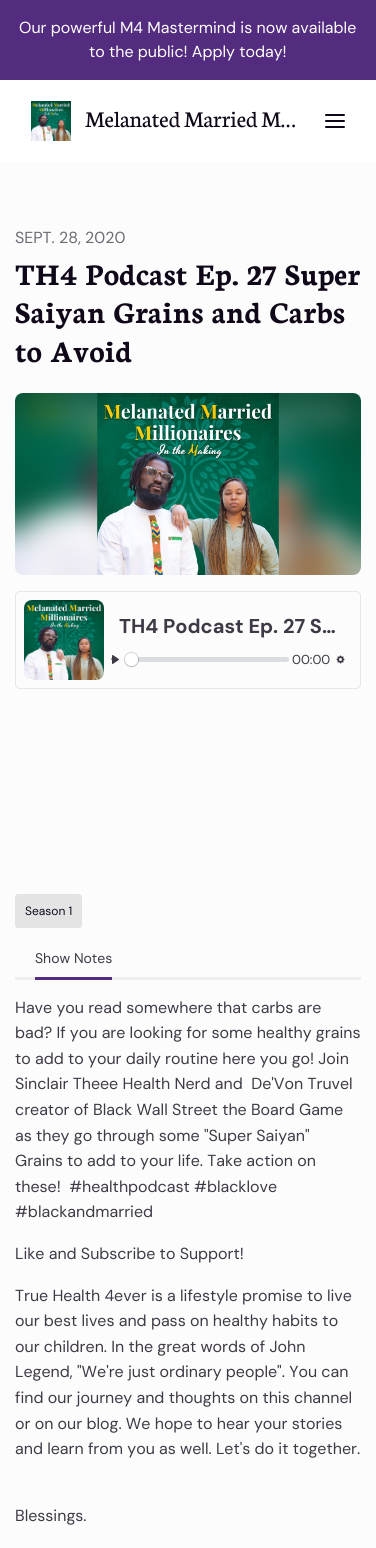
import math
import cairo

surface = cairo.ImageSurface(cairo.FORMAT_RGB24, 376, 1548)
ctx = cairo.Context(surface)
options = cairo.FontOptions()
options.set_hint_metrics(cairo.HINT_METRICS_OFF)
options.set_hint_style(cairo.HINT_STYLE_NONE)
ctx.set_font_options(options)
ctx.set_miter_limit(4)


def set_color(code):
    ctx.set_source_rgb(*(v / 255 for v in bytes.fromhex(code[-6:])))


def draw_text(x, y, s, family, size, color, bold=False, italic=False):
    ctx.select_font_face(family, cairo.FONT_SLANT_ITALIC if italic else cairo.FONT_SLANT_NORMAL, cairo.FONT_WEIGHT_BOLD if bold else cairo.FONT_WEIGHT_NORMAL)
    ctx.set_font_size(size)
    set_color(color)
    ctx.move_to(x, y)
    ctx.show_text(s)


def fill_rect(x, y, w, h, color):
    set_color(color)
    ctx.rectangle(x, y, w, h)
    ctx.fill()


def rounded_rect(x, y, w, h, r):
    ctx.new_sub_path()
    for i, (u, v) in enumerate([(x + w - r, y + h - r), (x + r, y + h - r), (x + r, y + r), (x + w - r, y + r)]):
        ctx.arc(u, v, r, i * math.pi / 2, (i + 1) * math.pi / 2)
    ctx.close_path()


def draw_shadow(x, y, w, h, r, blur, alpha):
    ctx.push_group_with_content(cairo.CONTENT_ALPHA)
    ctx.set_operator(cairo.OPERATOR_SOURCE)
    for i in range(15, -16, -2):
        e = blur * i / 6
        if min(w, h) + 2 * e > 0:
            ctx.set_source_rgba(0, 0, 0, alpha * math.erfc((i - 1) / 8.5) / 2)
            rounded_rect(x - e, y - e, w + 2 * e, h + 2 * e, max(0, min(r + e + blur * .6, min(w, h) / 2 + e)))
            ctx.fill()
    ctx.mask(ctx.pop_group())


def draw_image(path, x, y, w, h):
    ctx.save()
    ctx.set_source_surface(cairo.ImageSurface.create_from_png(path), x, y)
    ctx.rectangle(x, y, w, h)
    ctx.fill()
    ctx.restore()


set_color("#fcfcfc")
ctx.paint()
fill_rect(0, 0, 376, 80, "#532c80")
draw_text(19, 33, "Our powerful M4 Mastermind is now available", "DM Sans", 16, "#ffffff")
draw_text(89, 57, "to the public! Apply today!", "DM Sans", 16, "#ffffff")
fill_rect(0, 80, 376, 82, "#ffffff")
draw_image("assets/img1.png", 31, 101, 40, 40)
draw_text(85, 127, "Melanated Married M…", "Neuton", 24, "#100819")
rounded_rect(325, 114, 20, 2, 1)
ctx.fill()
rounded_rect(325, 120, 20, 2, 1)
ctx.fill()
rounded_rect(325, 126, 20, 2, 1)
ctx.fill()
draw_text(15, 243, "SEPT. 28, 2020", "DM Sans", 16, "#6e6a74")
draw_text(15, 285, "TH4 Podcast Ep. 27 Super", "Neuton", 32, "#100819", bold=True)
draw_text(15, 323, "Saiyan Grains and Carbs", "Neuton", 32, "#100819", bold=True)
draw_text(15, 362, "to Avoid", "Neuton", 32, "#100819", bold=True)
draw_image("assets/img2.png", 15, 393, 346, 182)
rounded_rect(15.5, 591.5, 345, 97, 4.5)
set_color("#e6e5e7")
ctx.set_line_width(1)
ctx.stroke()
draw_image("assets/img3.png", 24, 600, 80, 80)
draw_text(119, 633, "TH4 Podcast Ep. 27 S…", "DM Sans", 20, "#3f3946", bold=True)
draw_image("assets/img4.png", 112, 655, 7, 9)
set_color("#403947")
ctx.new_path()
ctx.move_to(110.5, 658.5)
ctx.line_to(117, 658.5)
ctx.line_to(114, 662)
ctx.close_path()
ctx.fill()
ctx.set_source_rgba(0.757, 0.784, 0.82, 0.6)
rounded_rect(125, 657, 164, 5, 2.5)
ctx.fill()
ctx.arc(131.5, 659.5, 7, 0, 2 * math.pi)
ctx.set_source_rgba(0.137, 0.157, 0.184, 0.2)
ctx.stroke()
set_color("#23282f")
draw_shadow(125, 654, 13, 13, 6.5, 0.5, 0.15)
set_color("#ffffff")
ctx.arc(131.5, 659.5, 6.5, 0, 2 * math.pi)
ctx.fill()
draw_text(292, 664, "00:00", "DM Sans", 13, "#3f3946")
draw_image("assets/img5.png", 336, 655, 9, 9)
set_color("#e4e4e5")
rounded_rect(15, 894, 67, 34, 3)
ctx.fill()
draw_text(25, 915, "Season 1", "DM Sans", 12, "#100819")
fill_rect(15, 977, 346, 3, "#efefef")
fill_rect(35, 977, 77, 3, "#532c80")
draw_text(35, 963, "Show Notes", "DM Sans", 14, "#3f3946")
draw_text(15, 1013, "Have you read somewhere that carbs are", "DM Sans", 16, "#3f3946")
draw_text(15, 1038, "bad? If you are looking for some healthy grains", "DM Sans", 16, "#3f3946")
draw_text(15, 1064, "to add to your daily routine here you go! Join", "DM Sans", 16, "#3f3946")
draw_text(15, 1089, "Sinclair Theee Health Nerd and  De'Von Truvel", "DM Sans", 16, "#3f3946")
draw_text(15, 1115, "creator of Black Wall Street the Board Game", "DM Sans", 16, "#3f3946")
draw_text(15, 1141, "as they go through some \"Super Saiyan\"", "DM Sans", 16, "#3f3946")
draw_text(15, 1166, "Grains to add to your life. Take action on", "DM Sans", 16, "#3f3946")
draw_text(15, 1192, "these!  #healthpodcast #blacklove", "DM Sans", 16, "#3f3946")
draw_text(15, 1217, "#blackandmarried", "DM Sans", 16, "#3f3946")
draw_text(15, 1259, "Like and Subscribe to Support!", "DM Sans", 16, "#3f3946")
draw_text(15, 1301, "True Health 4ever is a lifestyle promise to live", "DM Sans", 16, "#3f3946")
draw_text(15, 1326, "our best lives and pass on healthy habits to", "DM Sans", 16, "#3f3946")
draw_text(15, 1352, "our children. In the great words of John", "DM Sans", 16, "#3f3946")
draw_text(15, 1377, "Legend, \"We're just ordinary people\". You can", "DM Sans", 16, "#3f3946")
draw_text(15, 1403, "find our journey and thoughts on this channel", "DM Sans", 16, "#3f3946")
draw_text(15, 1429, "or on our blog. We hope to hear your stories", "DM Sans", 16, "#3f3946")
draw_text(15, 1454, "and learn from you as well. Let's do it together.", "DM Sans", 16, "#3f3946")
draw_text(15, 1521, "Blessings.", "DM Sans", 16, "#3f3946")
surface.write_to_png("output.png")
